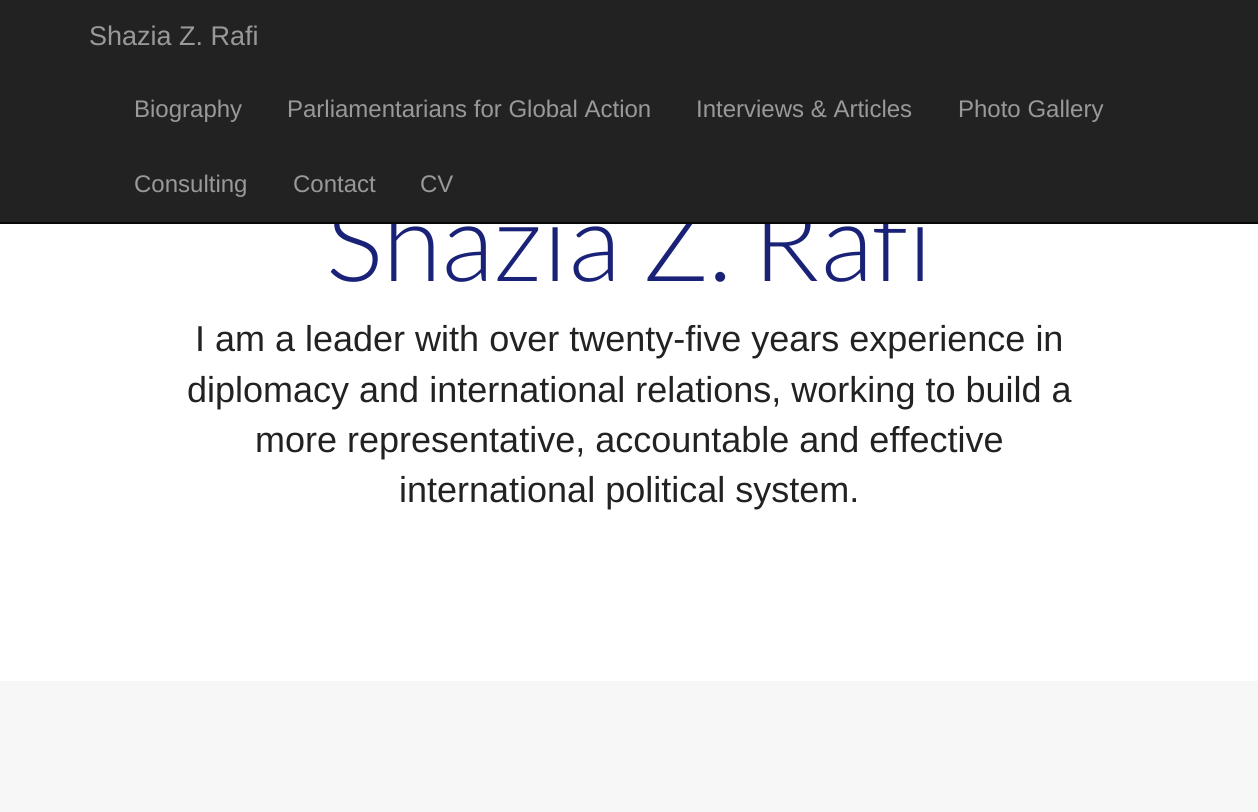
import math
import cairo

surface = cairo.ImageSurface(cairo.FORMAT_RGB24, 1258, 812)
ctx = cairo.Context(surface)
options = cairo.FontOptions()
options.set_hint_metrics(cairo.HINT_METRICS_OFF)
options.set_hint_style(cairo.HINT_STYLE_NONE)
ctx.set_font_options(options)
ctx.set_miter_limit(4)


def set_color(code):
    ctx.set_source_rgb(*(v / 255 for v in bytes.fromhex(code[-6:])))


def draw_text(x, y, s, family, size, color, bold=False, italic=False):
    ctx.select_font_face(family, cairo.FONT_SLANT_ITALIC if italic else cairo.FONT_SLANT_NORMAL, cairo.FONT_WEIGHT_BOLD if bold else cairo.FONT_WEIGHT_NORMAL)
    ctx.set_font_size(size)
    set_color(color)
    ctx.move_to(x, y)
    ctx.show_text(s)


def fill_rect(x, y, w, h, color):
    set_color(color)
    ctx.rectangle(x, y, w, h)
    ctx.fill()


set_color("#f7f7f7")
ctx.paint()
fill_rect(0, 224, 1258, 457, "#ffffff")
draw_text(326, 281, "Shazia Z. Rafi", "Lato Light", 108, "#1a2277")
fill_rect(0, 0, 1258, 222, "#222222")
fill_rect(0, 222, 1258, 2, "#080808")
draw_text(89, 45, "Shazia Z. Rafi", "Liberation Sans", 27, "#999999")
draw_text(134, 117, "Biography", "Liberation Sans", 24, "#999999")
draw_text(287, 117, "Parliamentarians for Global Action", "Liberation Sans", 24, "#999999")
draw_text(696, 117, "Interviews & Articles", "Liberation Sans", 24, "#999999")
draw_text(958, 117, "Photo Gallery", "Liberation Sans", 24, "#999999")
draw_text(134, 192, "Consulting", "Liberation Sans", 24, "#999999")
draw_text(293, 192, "Contact", "Liberation Sans", 24, "#999999")
draw_text(420, 192, "CV", "Liberation Sans", 24, "#999999")
draw_text(195, 351, "I am a leader with over twenty-five years experience in", "Liberation Sans", 36, "#222222")
draw_text(187, 402, "diplomacy and international relations, working to build a", "Liberation Sans", 36, "#222222")
draw_text(255, 452, "more representative, accountable and effective", "Liberation Sans", 36, "#222222")
draw_text(399, 502, "international political system.", "Liberation Sans", 36, "#222222")
surface.write_to_png("output.png")
